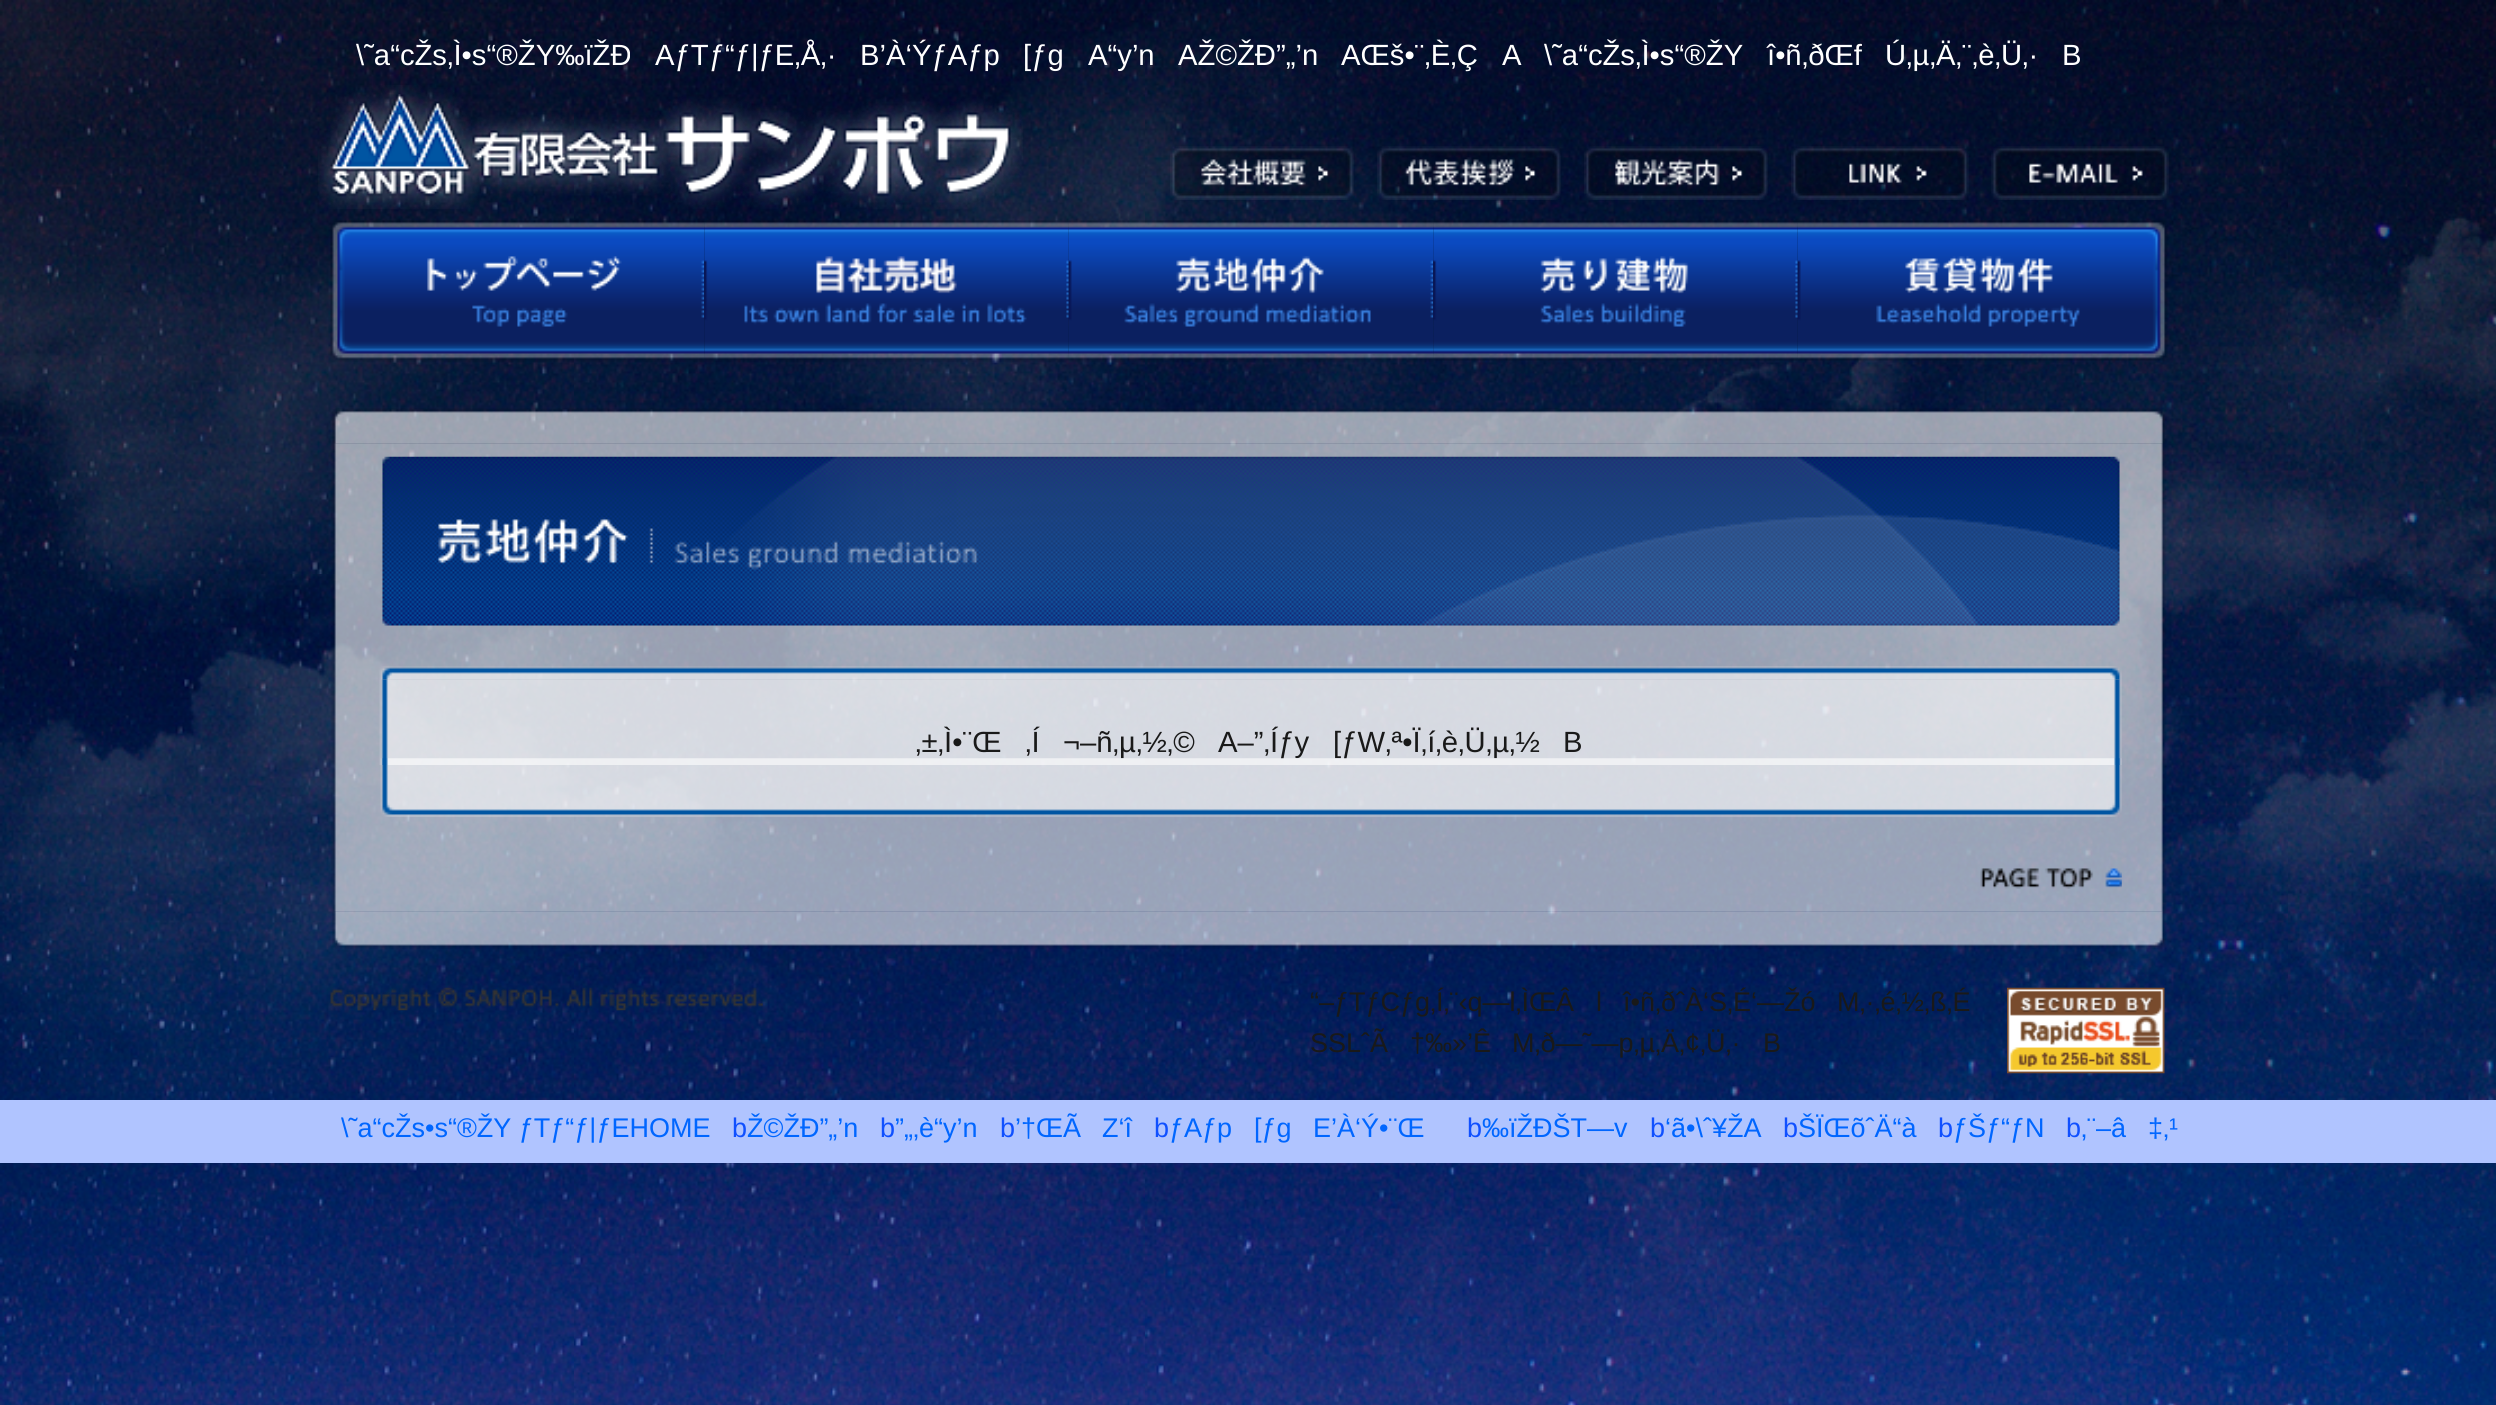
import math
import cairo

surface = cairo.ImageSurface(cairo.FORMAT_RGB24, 2496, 1405)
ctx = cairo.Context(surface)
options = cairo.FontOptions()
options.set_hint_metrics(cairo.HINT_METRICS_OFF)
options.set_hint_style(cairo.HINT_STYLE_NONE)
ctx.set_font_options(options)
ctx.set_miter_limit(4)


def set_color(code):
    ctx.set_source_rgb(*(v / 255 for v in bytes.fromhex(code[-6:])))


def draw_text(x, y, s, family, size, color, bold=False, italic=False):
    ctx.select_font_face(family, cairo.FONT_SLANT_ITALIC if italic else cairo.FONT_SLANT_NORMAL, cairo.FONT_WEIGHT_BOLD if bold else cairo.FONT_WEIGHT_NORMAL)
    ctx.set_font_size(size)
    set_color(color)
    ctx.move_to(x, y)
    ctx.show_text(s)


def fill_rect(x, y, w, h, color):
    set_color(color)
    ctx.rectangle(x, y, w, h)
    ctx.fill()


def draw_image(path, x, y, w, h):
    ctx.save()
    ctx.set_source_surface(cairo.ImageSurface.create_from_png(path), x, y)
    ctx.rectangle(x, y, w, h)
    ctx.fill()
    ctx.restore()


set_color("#ffffff")
ctx.paint()
draw_image("assets/img1.png", 0, 0, 2496, 1405)
draw_text(356, 65, "\\˜a“cŽs‚Ì•s“®ŽY‰ïŽÐ", "Liberation Sans", 29.25, "#ffffff")
draw_text(655, 65, "AƒTƒ“ƒ|ƒE‚Å‚·", "Liberation Sans", 29.25, "#ffffff")
draw_text(860, 65, "B’À‘ÝƒAƒp", "Liberation Sans", 29.25, "#ffffff")
draw_text(1023, 65, "[ƒg", "Liberation Sans", 29.25, "#ffffff")
draw_text(1088, 65, "A“y’n", "Liberation Sans", 29.25, "#ffffff")
draw_text(1178, 65, "AŽ©ŽÐ”„’n", "Liberation Sans", 29.25, "#ffffff")
draw_text(1341, 65, "AŒš•¨‚È‚Ç", "Liberation Sans", 29.25, "#ffffff")
draw_text(1502, 65, "A", "Liberation Sans", 29.25, "#ffffff")
draw_text(1544, 65, "\\˜a“cŽs‚Ì•s“®ŽY", "Liberation Sans", 29.25, "#ffffff")
draw_text(1767, 65, "î•ñ‚ðŒf", "Liberation Sans", 29.25, "#ffffff")
draw_text(1885, 65, "Ú‚µ‚Ä‚¨‚è‚Ü‚·", "Liberation Sans", 29.25, "#ffffff")
draw_text(2062, 65, "B", "Liberation Sans", 29.25, "#ffffff")
draw_image("assets/img2.png", 318, 85, 705, 124)
draw_image("assets/img3.png", 1170, 146, 184, 54)
draw_image("assets/img4.png", 1377, 146, 184, 54)
draw_image("assets/img5.png", 1584, 146, 184, 54)
draw_image("assets/img6.png", 1791, 146, 178, 54)
draw_image("assets/img7.png", 1991, 146, 178, 54)
draw_image("assets/img8.png", 330, 220, 375, 142)
draw_image("assets/img9.png", 704, 220, 365, 142)
draw_image("assets/img10.png", 1068, 220, 366, 142)
draw_image("assets/img11.png", 1433, 220, 365, 141)
draw_image("assets/img12.png", 1797, 220, 371, 141)
draw_image("assets/img13.png", 332, 408, 1833, 36)
draw_image("assets/img14.png", 331, 443, 1835, 469)
draw_image("assets/img15.png", 382, 456, 1738, 170)
draw_image("assets/img16.png", 379, 666, 1743, 14)
draw_image("assets/img18.png", 380, 758, 1742, 59)
draw_image("assets/img17.png", 379, 679, 1743, 86)
draw_text(915, 752, "‚±‚Ì•¨Œ", "Liberation Sans", 29.25, "#191919")
draw_text(1025, 752, "‚Í", "Liberation Sans", 29.25, "#191919")
draw_text(1063, 752, "¬–ñ‚µ‚½‚©", "Liberation Sans", 29.25, "#191919")
draw_text(1218, 752, "A–”‚Íƒy", "Liberation Sans", 29.25, "#191919")
draw_text(1333, 752, "[ƒW‚ª•Ï‚í‚è‚Ü‚µ‚½", "Liberation Sans", 29.25, "#191919")
draw_text(1563, 752, "B", "Liberation Sans", 29.25, "#191919")
draw_image("assets/img19.png", 1980, 868, 142, 21)
draw_image("assets/img20.png", 332, 911, 1834, 38)
draw_image("assets/img21.png", 330, 987, 433, 24)
draw_text(1310, 1011, "“–ƒTƒCƒg‚Í‚¨‹q—l‚ÌŒÂ", "Liberation Sans", 27, "#191919")
draw_text(1596, 1011, "l", "Liberation Sans", 27, "#191919")
draw_text(1623, 1011, "î•ñ‚ðˆÀ‘S‚É‘—Žó", "Liberation Sans", 27, "#191919")
draw_text(1837, 1011, "M‚·‚é‚½‚ß‚É", "Liberation Sans", 27, "#191919")
draw_text(1310, 1052, "SSLˆÃ", "Liberation Sans", 27, "#191919")
draw_text(1410, 1052, "†‰»’Ê", "Liberation Sans", 27, "#191919")
draw_text(1512, 1052, "M‚ð—˜—p‚µ‚Ä‚¢‚Ü‚·", "Liberation Sans", 27, "#191919")
draw_text(1763, 1052, "B", "Liberation Sans", 27, "#191919")
draw_image("assets/img22.png", 2007, 987, 158, 87)
fill_rect(0, 1100, 2496, 63, "#b0c4ff")
draw_text(341, 1137, "\\˜a“cŽs•s“®ŽY ƒTƒ“ƒ|ƒEHOME", "Liberation Sans", 27, "#0066ff")
draw_text(732, 1137, "b", "Liberation Sans", 27, "#1050ff")
draw_text(747, 1137, "Ž©ŽÐ”„’n", "Liberation Sans", 27, "#0066ff")
draw_text(880, 1137, "b", "Liberation Sans", 27, "#1050ff")
draw_text(895, 1137, "”„‚è“y’n", "Liberation Sans", 27, "#0066ff")
draw_text(1000, 1137, "b", "Liberation Sans", 27, "#1050ff")
draw_text(1015, 1137, "’†ŒÃ", "Liberation Sans", 27, "#0066ff")
draw_text(1102, 1137, "Z‘î", "Liberation Sans", 27, "#0066ff")
draw_text(1154, 1137, "b", "Liberation Sans", 27, "#1050ff")
draw_text(1169, 1137, "ƒAƒp", "Liberation Sans", 27, "#0066ff")
draw_text(1254, 1137, "[ƒg", "Liberation Sans", 27, "#0066ff")
draw_text(1313, 1137, "E’À‘Ý•¨Œ", "Liberation Sans", 27, "#0066ff")
draw_text(1467, 1137, "b", "Liberation Sans", 27, "#1050ff")
draw_text(1482, 1137, "‰ïŽÐŠT—v", "Liberation Sans", 27, "#0066ff")
draw_text(1650, 1137, "b", "Liberation Sans", 27, "#1050ff")
draw_text(1665, 1137, "‘ã•\\ˆ¥ŽA", "Liberation Sans", 27, "#0066ff")
draw_text(1783, 1137, "b", "Liberation Sans", 27, "#1050ff")
draw_text(1798, 1137, "ŠÏŒõˆÄ“à", "Liberation Sans", 27, "#0066ff")
draw_text(1938, 1137, "b", "Liberation Sans", 27, "#1050ff")
draw_text(1953, 1137, "ƒŠƒ“ƒN", "Liberation Sans", 27, "#0066ff")
draw_text(2066, 1137, "b", "Liberation Sans", 27, "#1050ff")
draw_text(2081, 1137, "‚¨–â", "Liberation Sans", 27, "#0066ff")
draw_text(2148, 1137, "‡‚¹", "Liberation Sans", 27, "#0066ff")
surface.write_to_png("output.png")
